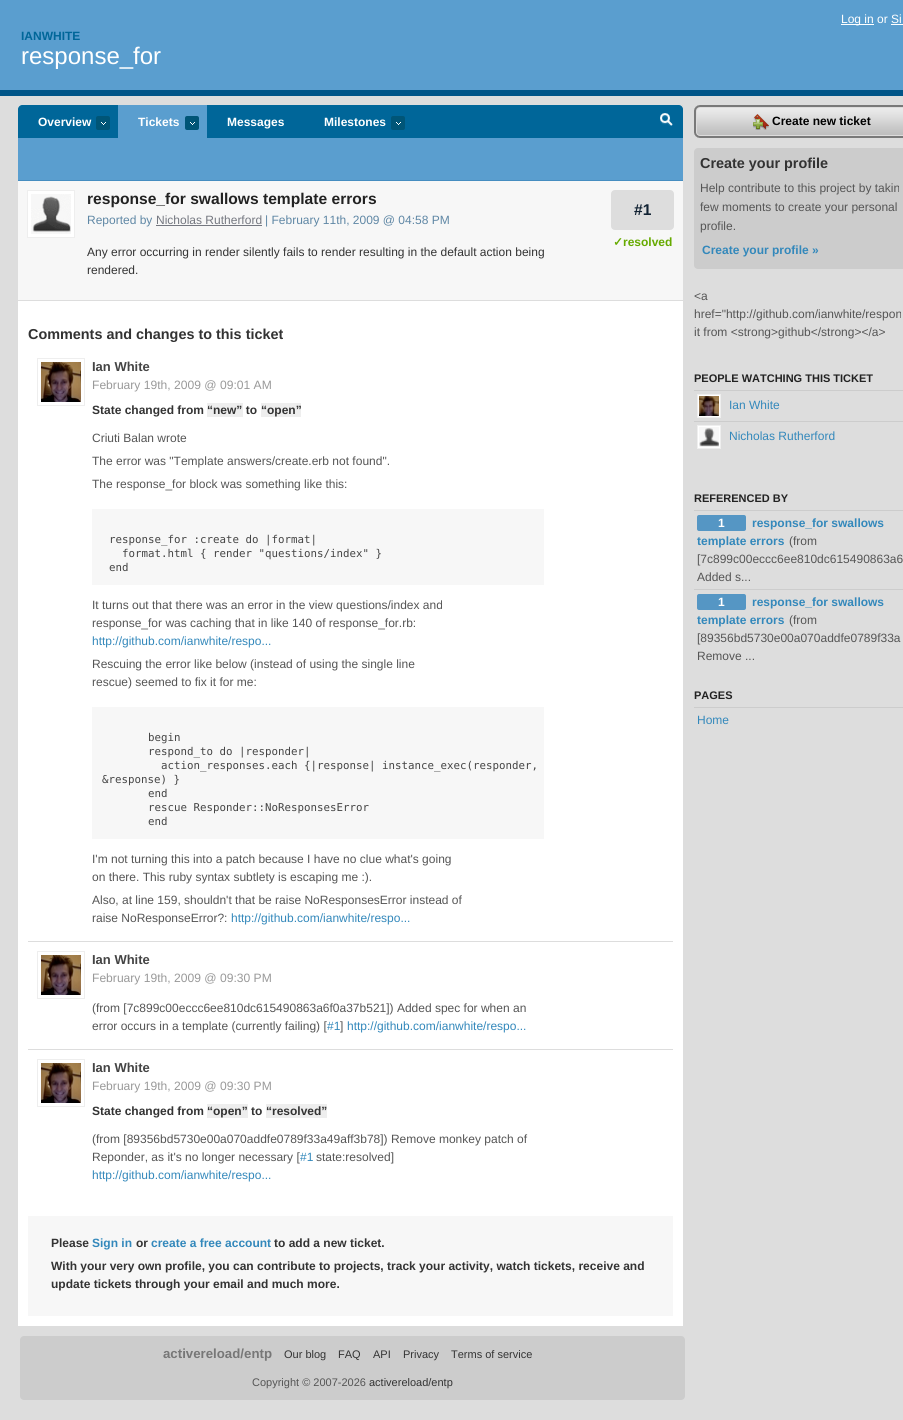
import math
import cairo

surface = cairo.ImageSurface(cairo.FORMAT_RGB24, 903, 1420)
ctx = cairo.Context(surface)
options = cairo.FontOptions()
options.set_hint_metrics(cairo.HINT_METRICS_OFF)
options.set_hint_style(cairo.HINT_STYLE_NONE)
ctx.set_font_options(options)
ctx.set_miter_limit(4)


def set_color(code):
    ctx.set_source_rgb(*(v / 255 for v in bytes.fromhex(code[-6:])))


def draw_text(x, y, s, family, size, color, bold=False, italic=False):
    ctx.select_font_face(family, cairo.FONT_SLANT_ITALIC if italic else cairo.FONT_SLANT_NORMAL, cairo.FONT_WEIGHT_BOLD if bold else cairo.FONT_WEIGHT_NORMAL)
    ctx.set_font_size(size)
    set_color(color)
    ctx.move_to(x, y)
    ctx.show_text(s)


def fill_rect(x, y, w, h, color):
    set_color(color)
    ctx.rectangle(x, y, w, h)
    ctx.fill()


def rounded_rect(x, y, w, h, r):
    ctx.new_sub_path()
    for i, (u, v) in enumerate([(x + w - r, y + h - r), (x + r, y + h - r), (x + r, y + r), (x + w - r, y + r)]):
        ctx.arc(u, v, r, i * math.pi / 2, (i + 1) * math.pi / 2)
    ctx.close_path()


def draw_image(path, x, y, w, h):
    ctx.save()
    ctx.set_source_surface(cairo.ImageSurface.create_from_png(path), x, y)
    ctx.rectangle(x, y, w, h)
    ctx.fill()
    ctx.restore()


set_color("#dddddd")
ctx.paint()
fill_rect(0, 0, 903, 90, "#5a9ecf")
fill_rect(0, 90, 903, 6, "#005588")
fill_rect(841, 24, 33, 1, "#ffffff")
draw_text(841, 23, "Log in or Si", "Liberation Sans", 12, "#ffffff")
fill_rect(891, 24, 12, 1, "#ffffff")
draw_text(21, 40, "IANWHITE", "Liberation Sans", 12, "#006699", bold=True)
draw_text(21, 64, "response_for", "Liberation Sans", 24, "#ffffff")
ctx.new_path()
ctx.move_to(22, 105)
ctx.line_to(679, 105)
ctx.curve_to(681, 105, 683, 107, 683, 109)
ctx.line_to(683, 1326)
ctx.line_to(18, 1326)
ctx.line_to(18, 109)
ctx.curve_to(18, 107, 20, 105, 22, 105)
ctx.close_path()
ctx.fill()
set_color("#006699")
ctx.new_path()
ctx.move_to(22, 105)
ctx.line_to(679, 105)
ctx.curve_to(681, 105, 683, 107, 683, 109)
ctx.line_to(683, 138)
ctx.line_to(18, 138)
ctx.line_to(18, 109)
ctx.curve_to(18, 107, 20, 105, 22, 105)
ctx.close_path()
ctx.fill()
draw_text(38, 126, "Overview", "Liberation Sans", 12, "#ffffff", bold=True)
set_color("#005577")
rounded_rect(96, 116, 14, 14, 2)
ctx.fill()
draw_image("assets/img1.png", 101, 122, 5, 3)
fill_rect(118, 105, 89, 33, "#5a9ecf")
draw_text(138, 126, "Tickets", "Liberation Sans", 12, "#ffffff", bold=True)
set_color("#005577")
rounded_rect(185, 116, 14, 14, 2)
ctx.fill()
draw_image("assets/img1.png", 190, 122, 5, 3)
draw_text(227, 126, "Messages", "Liberation Sans", 12, "#ffffff", bold=True)
draw_text(324, 126, "Milestones", "Liberation Sans", 12, "#ffffff", bold=True)
set_color("#005577")
rounded_rect(391, 116, 14, 14, 2)
ctx.fill()
draw_image("assets/img1.png", 396, 122, 5, 3)
draw_image("assets/img2.png", 681, 105, 2, 2)
draw_image("assets/img3.png", 660, 113, 13, 13)
fill_rect(18, 138, 665, 42, "#5a9ecf")
fill_rect(18, 180, 665, 1, "#468dc0")
fill_rect(18, 181, 665, 119, "#f7f7f7")
fill_rect(18, 300, 665, 1, "#dddddd")
set_color("#ffffff")
ctx.rectangle(27.5, 190.5, 47, 47)
ctx.fill_preserve()
set_color("#eeeeee")
ctx.set_line_width(1)
ctx.stroke()
draw_image("assets/img4.png", 31, 194, 40, 40)
draw_text(87, 204, "response_for swallows template errors", "Liberation Sans", 15.6, "#222222", bold=True)
draw_text(87, 224, "Reported by", "Liberation Sans", 12, "#5f87a5")
draw_text(156, 224, "Nicholas Rutherford", "Liberation Sans", 12, "#747780")
fill_rect(156, 225, 106, 1, "#747780")
draw_text(265, 224, "| February 11th, 2009 @ 04:58 PM", "Liberation Sans", 12, "#5f87a5")
draw_text(87, 256, "Any error occurring in render silently fails to render resulting in the default action being", "Liberation Sans", 12, "#333333")
draw_text(87, 274, "rendered.", "Liberation Sans", 12, "#333333")
set_color("#dddddd")
rounded_rect(611, 190, 63, 40, 4)
ctx.fill()
draw_text(634, 215, "#1", "Liberation Sans", 15.6, "#112233", bold=True)
draw_text(613, 246, "✓", "DejaVu Sans", 12, "#66aa00", bold=True)
draw_text(623, 246, "resolved", "Liberation Sans", 12, "#66aa00", bold=True)
draw_text(28, 339, "Comments and changes to this ticket", "Liberation Sans", 14.4, "#333333", bold=True)
fill_rect(28, 941, 645, 1, "#dddddd")
ctx.rectangle(37.5, 358.5, 47, 47)
set_color("#eeeeee")
ctx.stroke()
draw_image("assets/img5.png", 41, 362, 40, 40)
draw_text(92, 371, "Ian White", "Liberation Sans", 13, "#444444", bold=True)
draw_text(92, 389, "February 19th, 2009 @ 09:01 AM", "Liberation Sans", 12.1, "#999999")
draw_text(92, 414, "State changed from", "Liberation Sans", 12, "#333333", bold=True)
fill_rect(207, 403, 36, 14, "#eeeeee")
draw_text(207, 414, "“new” to", "Liberation Sans", 12, "#333333", bold=True)
fill_rect(261, 403, 40, 14, "#eeeeee")
draw_text(261, 414, "“open”", "Liberation Sans", 12, "#333333", bold=True)
draw_text(92, 442, "Criuti Balan wrote", "Liberation Sans", 12, "#555555")
draw_text(92, 465, "The error was \"Template answers/create.erb not found\".", "Liberation Sans", 12, "#555555")
draw_text(92, 488, "The response_for block was something like this:", "Liberation Sans", 12, "#555555")
fill_rect(92, 509, 452, 76, "#f7f7f7")
draw_text(109, 543, "response_for :create do |format|", "DejaVu Sans Mono", 10.8, "#444444")
draw_text(122, 557, "format.html { render \"questions/index\" }", "DejaVu Sans Mono", 10.8, "#444444")
draw_text(109, 571, "end", "DejaVu Sans Mono", 10.8, "#444444")
draw_text(92, 609, "It turns out that there was an error in the view questions/index and", "Liberation Sans", 12, "#555555")
draw_text(92, 627, "response_for was caching that in like 140 of response_for.rb:", "Liberation Sans", 12, "#555555")
draw_text(92, 645, "http://github.com/ianwhite/respo...", "Liberation Sans", 12, "#3388bb")
draw_text(92, 668, "Rescuing the error like below (instead of using the single line", "Liberation Sans", 12, "#555555")
draw_text(92, 686, "rescue) seemed to fix it for me:", "Liberation Sans", 12, "#555555")
fill_rect(92, 707, 452, 132, "#f7f7f7")
draw_text(148, 741, "begin", "DejaVu Sans Mono", 10.8, "#444444")
draw_text(148, 755, "respond_to do |responder|", "DejaVu Sans Mono", 10.8, "#444444")
draw_text(161, 769, "action_responses.each {|response| instance_exec(responder,", "DejaVu Sans Mono", 10.8, "#444444")
draw_text(102, 783, "&response) }", "DejaVu Sans Mono", 10.8, "#444444")
draw_text(148, 797, "end", "DejaVu Sans Mono", 10.8, "#444444")
draw_text(148, 811, "rescue Responder::NoResponsesError", "DejaVu Sans Mono", 10.8, "#444444")
draw_text(148, 825, "end", "DejaVu Sans Mono", 10.8, "#444444")
draw_text(92, 863, "I'm not turning this into a patch because I have no clue what's going", "Liberation Sans", 12, "#555555")
draw_text(92, 881, "on there. This ruby syntax subtlety is escaping me :).", "Liberation Sans", 12, "#555555")
draw_text(92, 904, "Also, at line 159, shouldn't that be raise NoResponsesError instead of", "Liberation Sans", 12, "#555555")
draw_text(92, 922, "raise NoResponseError?:", "Liberation Sans", 12, "#555555")
draw_text(231, 922, "http://github.com/ianwhite/respo...", "Liberation Sans", 12, "#3388bb")
fill_rect(28, 1049, 645, 1, "#dddddd")
ctx.rectangle(37.5, 951.5, 47, 47)
set_color("#eeeeee")
ctx.stroke()
draw_image("assets/img6.png", 41, 955, 40, 40)
draw_text(92, 964, "Ian White", "Liberation Sans", 13, "#444444", bold=True)
draw_text(92, 982, "February 19th, 2009 @ 09:30 PM", "Liberation Sans", 12.1, "#999999")
draw_text(92, 1012, "(from [7c899c00eccc6ee810dc615490863a6f0a37b521]) Added spec for when an", "Liberation Sans", 12, "#555555")
draw_text(92, 1030, "error occurs in a template (currently failing) [", "Liberation Sans", 12, "#555555")
draw_text(327, 1030, "#1", "Liberation Sans", 12, "#3388bb")
draw_text(340, 1030, "]", "Liberation Sans", 12, "#555555")
draw_text(347, 1030, "http://github.com/ianwhite/respo...", "Liberation Sans", 12, "#3388bb")
ctx.rectangle(37.5, 1059.5, 47, 47)
set_color("#eeeeee")
ctx.stroke()
draw_image("assets/img6.png", 41, 1063, 40, 40)
draw_text(92, 1072, "Ian White", "Liberation Sans", 13, "#444444", bold=True)
draw_text(92, 1090, "February 19th, 2009 @ 09:30 PM", "Liberation Sans", 12.1, "#999999")
draw_text(92, 1115, "State changed from", "Liberation Sans", 12, "#333333", bold=True)
fill_rect(207, 1104, 41, 14, "#eeeeee")
draw_text(207, 1115, "“open” to", "Liberation Sans", 12, "#333333", bold=True)
fill_rect(266, 1104, 61, 14, "#eeeeee")
draw_text(266, 1115, "“resolved”", "Liberation Sans", 12, "#333333", bold=True)
draw_text(92, 1143, "(from [89356bd5730e00a070addfe0789f33a49aff3b78]) Remove monkey patch of", "Liberation Sans", 12, "#555555")
draw_text(92, 1161, "Reponder, as it's no longer necessary [", "Liberation Sans", 12, "#555555")
draw_text(300, 1161, "#1", "Liberation Sans", 12, "#3388bb")
draw_text(316, 1161, "state:resolved]", "Liberation Sans", 12, "#555555")
draw_text(92, 1179, "http://github.com/ianwhite/respo...", "Liberation Sans", 12, "#3388bb")
fill_rect(28, 1216, 645, 100, "#f7f7f7")
draw_text(51, 1247, "Please", "Liberation Sans", 12, "#333333", bold=True)
draw_text(92, 1247, "Sign in", "Liberation Sans", 12, "#3388bb", bold=True)
draw_text(136, 1247, "or", "Liberation Sans", 12, "#333333", bold=True)
draw_text(151, 1247, "create a free account", "Liberation Sans", 12, "#3388bb", bold=True)
draw_text(274, 1247, "to add a new ticket.", "Liberation Sans", 12, "#333333", bold=True)
draw_text(51, 1270, "With your very own profile, you can contribute to projects, track your activity, watch tickets, receive and", "Liberation Sans", 12, "#333333", bold=True)
draw_text(51, 1288, "update tickets through your email and much more.", "Liberation Sans", 12, "#333333", bold=True)
draw_image("assets/img7.png", 694, 105, 209, 33)
draw_image("assets/img8.png", 753, 114, 16, 16)
draw_text(772, 125, "Create new ticket", "Liberation Sans", 12, "#000000", bold=True)
set_color("#cccccc")
rounded_rect(694, 148, 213, 121, 4)
ctx.fill()
draw_text(700, 168, "Create your profile", "Liberation Sans", 14.4, "#333333", bold=True)
draw_text(700, 192, "Help contribute to this project by takin", "Liberation Sans", 12, "#555555")
draw_text(700, 211, "few moments to create your personal", "Liberation Sans", 12, "#555555")
draw_text(700, 230, "profile.", "Liberation Sans", 12, "#555555")
draw_text(702, 254, "Create your profile »", "Liberation Sans", 12, "#3388bb", bold=True)
draw_text(694, 300, "<a", "Liberation Sans", 12, "#555555")
draw_text(694, 318, "href=\"http://github.com/ianwhite/respon", "Liberation Sans", 12, "#555555")
draw_text(694, 336, "it from <strong>github</strong></a>", "Liberation Sans", 12, "#555555")
draw_text(694, 382, "PEOPLE WATCHING THIS TICKET", "Liberation Sans", 11, "#222222", bold=True)
fill_rect(694, 390, 209, 1, "#cccccc")
set_color("#ffffff")
ctx.rectangle(697.5, 394.5, 23, 23)
ctx.fill_preserve()
set_color("#eeeeee")
ctx.stroke()
draw_image("assets/img9.png", 699, 396, 20, 20)
draw_text(729, 409, "Ian White", "Liberation Sans", 12, "#3388bb")
fill_rect(694, 421, 209, 1, "#cccccc")
set_color("#ffffff")
ctx.rectangle(697.5, 425.5, 23, 23)
ctx.fill_preserve()
set_color("#eeeeee")
ctx.stroke()
draw_image("assets/img10.png", 699, 427, 20, 20)
draw_text(729, 440, "Nicholas Rutherford", "Liberation Sans", 12, "#3388bb")
draw_text(694, 502, "REFERENCED BY", "Liberation Sans", 11, "#222222", bold=True)
fill_rect(694, 510, 209, 1, "#cccccc")
set_color("#5596c4")
rounded_rect(697, 515, 49, 16, 2)
ctx.fill()
draw_text(718, 527, "1", "Liberation Sans", 12, "#ffffff", bold=True)
draw_text(752, 527, "response_for swallows", "Liberation Sans", 12, "#3388bb", bold=True)
draw_text(697, 545, "template errors", "Liberation Sans", 12, "#3388bb", bold=True)
draw_text(789, 545, "(from", "Liberation Sans", 12, "#555555")
draw_text(697, 563, "[7c899c00eccc6ee810dc615490863a6", "Liberation Sans", 12, "#555555")
draw_text(697, 581, "Added s...", "Liberation Sans", 12, "#555555")
fill_rect(694, 589, 209, 1, "#cccccc")
set_color("#5596c4")
rounded_rect(697, 594, 49, 16, 2)
ctx.fill()
draw_text(718, 606, "1", "Liberation Sans", 12, "#ffffff", bold=True)
draw_text(752, 606, "response_for swallows", "Liberation Sans", 12, "#3388bb", bold=True)
draw_text(697, 624, "template errors", "Liberation Sans", 12, "#3388bb", bold=True)
draw_text(789, 624, "(from", "Liberation Sans", 12, "#555555")
draw_text(697, 642, "[89356bd5730e00a070addfe0789f33a", "Liberation Sans", 12, "#555555")
draw_text(697, 660, "Remove ...", "Liberation Sans", 12, "#555555")
draw_text(694, 699, "PAGES", "Liberation Sans", 11, "#222222", bold=True)
fill_rect(694, 707, 209, 1, "#cccccc")
draw_text(697, 724, "Home", "Liberation Sans", 12, "#3388bb")
set_color("#cccccc")
rounded_rect(20, 1336, 665, 64, 4)
ctx.fill()
draw_text(163, 1358, "activereload/entp", "Liberation Sans", 13.25, "#777777", bold=True)
draw_text(284, 1358, "Our blog", "Liberation Sans", 11, "#333333")
draw_text(338, 1358, "FAQ", "Liberation Sans", 11, "#333333")
draw_text(373, 1358, "API", "Liberation Sans", 11, "#333333")
draw_text(403, 1358, "Privacy", "Liberation Sans", 11, "#333333")
draw_text(451, 1358, "Terms of service", "Liberation Sans", 11, "#333333")
draw_text(252, 1386, "Copyright © 2007-2026", "Liberation Sans", 11, "#555555")
draw_text(369, 1386, "activereload/entp", "Liberation Sans", 11, "#333333")
surface.write_to_png("output.png")
